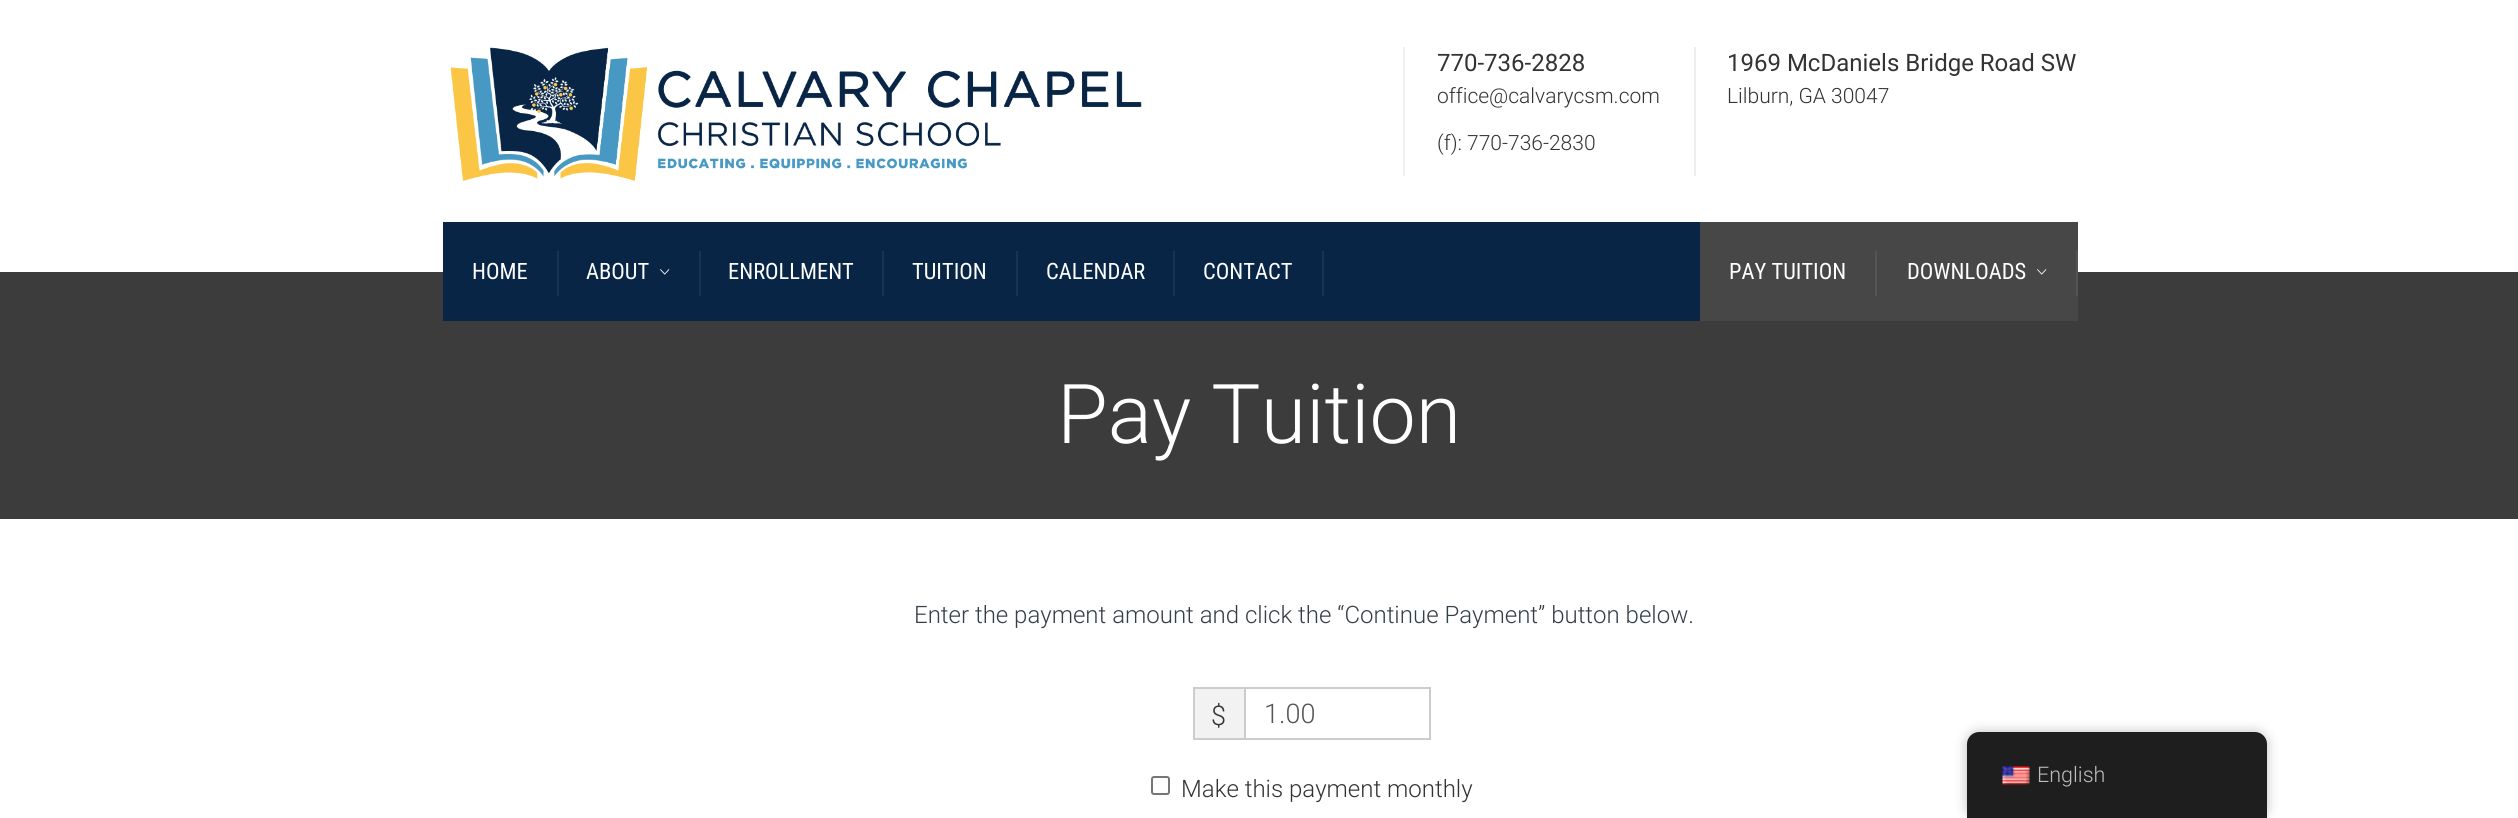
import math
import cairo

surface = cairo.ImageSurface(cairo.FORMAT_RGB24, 2518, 818)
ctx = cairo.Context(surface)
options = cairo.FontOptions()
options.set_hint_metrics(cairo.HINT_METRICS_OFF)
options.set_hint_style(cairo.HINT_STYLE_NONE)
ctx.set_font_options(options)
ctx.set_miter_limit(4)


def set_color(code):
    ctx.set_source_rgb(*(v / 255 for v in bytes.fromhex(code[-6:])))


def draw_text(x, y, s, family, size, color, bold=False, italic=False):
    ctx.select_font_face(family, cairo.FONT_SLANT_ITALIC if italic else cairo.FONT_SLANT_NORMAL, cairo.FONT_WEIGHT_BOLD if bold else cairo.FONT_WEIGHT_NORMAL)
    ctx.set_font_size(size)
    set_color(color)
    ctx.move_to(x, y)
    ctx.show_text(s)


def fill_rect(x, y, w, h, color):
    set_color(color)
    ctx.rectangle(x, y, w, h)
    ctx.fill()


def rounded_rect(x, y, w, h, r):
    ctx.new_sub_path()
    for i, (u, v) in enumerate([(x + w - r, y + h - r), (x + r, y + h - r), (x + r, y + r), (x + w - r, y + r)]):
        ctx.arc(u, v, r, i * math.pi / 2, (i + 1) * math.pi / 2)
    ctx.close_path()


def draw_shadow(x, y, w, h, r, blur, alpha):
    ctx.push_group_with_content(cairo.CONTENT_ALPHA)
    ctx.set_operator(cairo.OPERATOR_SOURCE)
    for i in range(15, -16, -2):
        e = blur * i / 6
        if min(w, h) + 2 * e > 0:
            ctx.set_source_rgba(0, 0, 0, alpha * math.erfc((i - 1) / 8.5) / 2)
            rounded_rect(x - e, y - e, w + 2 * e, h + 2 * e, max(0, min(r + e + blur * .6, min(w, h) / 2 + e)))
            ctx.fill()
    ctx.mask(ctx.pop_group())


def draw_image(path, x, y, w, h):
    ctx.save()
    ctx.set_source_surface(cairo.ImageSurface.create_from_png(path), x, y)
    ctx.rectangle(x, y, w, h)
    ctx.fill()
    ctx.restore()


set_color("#ffffff")
ctx.paint()
draw_image("assets/img1.png", 450, 47, 692, 134)
fill_rect(1403, 47, 2, 129, "#eeeeee")
draw_text(1437, 71, "770-736-2828", "Roboto", 24, "#333333")
draw_text(1437, 103, "office@calvarycsm.com", "Roboto Light", 21, "#333333")
draw_text(1437, 150, "(f): 770-736-2830", "Roboto Light", 21, "#333333")
fill_rect(1694, 47, 2, 129, "#eeeeee")
draw_text(1727, 71, "1969 McDaniels Bridge Road SW", "Roboto", 24, "#333333")
draw_text(1727, 103, "Lilburn, GA 30047", "Roboto Light", 21, "#333333")
fill_rect(0, 272, 2518, 247, "#3c3c3c")
fill_rect(443, 222, 1257, 99, "#082546")
draw_text(472, 279, "HOME", "Roboto Condensed", 22.5, "#ffffff")
fill_rect(557, 251, 2, 45, "#193453")
draw_text(586, 279, "ABOUT", "Roboto Condensed", 22.5, "#ffffff")
fill_rect(699, 251, 2, 45, "#193453")
draw_image("assets/img2.png", 660, 269, 10, 6)
draw_text(728, 279, "ENROLLMENT", "Roboto Condensed", 22.5, "#ffffff")
fill_rect(882, 251, 2, 45, "#193453")
draw_text(912, 279, "TUITION", "Roboto Condensed", 22.5, "#ffffff")
fill_rect(1016, 251, 2, 45, "#193453")
draw_text(1046, 279, "CALENDAR", "Roboto Condensed", 22.5, "#ffffff")
fill_rect(1173, 251, 2, 45, "#193453")
draw_text(1203, 279, "CONTACT", "Roboto Condensed", 22.5, "#ffffff")
fill_rect(1322, 251, 2, 45, "#193453")
fill_rect(1700, 222, 378, 99, "#474747")
draw_text(1729, 279, "PAY TUITION", "Roboto Condensed", 22.5, "#ffffff")
fill_rect(1875, 251, 2, 45, "#545454")
draw_text(1907, 279, "DOWNLOADS", "Roboto Condensed", 22.5, "#ffffff")
fill_rect(2076, 251, 2, 45, "#545454")
draw_image("assets/img3.png", 2037, 269, 10, 6)
draw_text(1057, 443, "Pay Tuition", "Roboto Light", 82.5, "#ffffff")
draw_text(914, 623, "Enter the payment amount and click the “Continue Payment” button below.", "Roboto Light", 24, "#343e47")
fill_rect(1195, 689, 49, 49, "#f2f2f2")
fill_rect(1193, 687, 51, 2, "#cccccc")
fill_rect(1193, 738, 51, 2, "#cccccc")
fill_rect(1193, 687, 2, 53, "#cccccc")
draw_text(1211, 725, "$", "Roboto Light", 27, "#333333")
ctx.rectangle(1245, 688, 185, 51)
set_color("#cccccc")
ctx.stroke()
draw_text(1264, 723, "1.00", "Roboto Light", 27, "#555555")
rounded_rect(1152, 777, 17, 17, 2)
set_color("#767676")
ctx.stroke()
draw_text(1181, 797, "Make this payment monthly", "Roboto Light", 24, "#333333")
set_color("#000000")
draw_shadow(1967, 732, 300, 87, 12, 6, 0.25)
set_color("#1e1e1e")
ctx.new_path()
ctx.move_to(1979, 732)
ctx.line_to(2255, 732)
ctx.curve_to(2261.5, 732, 2267, 737.5, 2267, 744)
ctx.line_to(2267, 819)
ctx.line_to(1967, 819)
ctx.line_to(1967, 744)
ctx.curve_to(1967, 737.5, 1972.5, 732, 1979, 732)
ctx.close_path()
ctx.fill()
draw_image("assets/img4.png", 2002, 766, 28, 19)
draw_text(2037, 782, "English", "Roboto Light", 21.5, "#bdbdbd")
surface.write_to_png("output.png")
